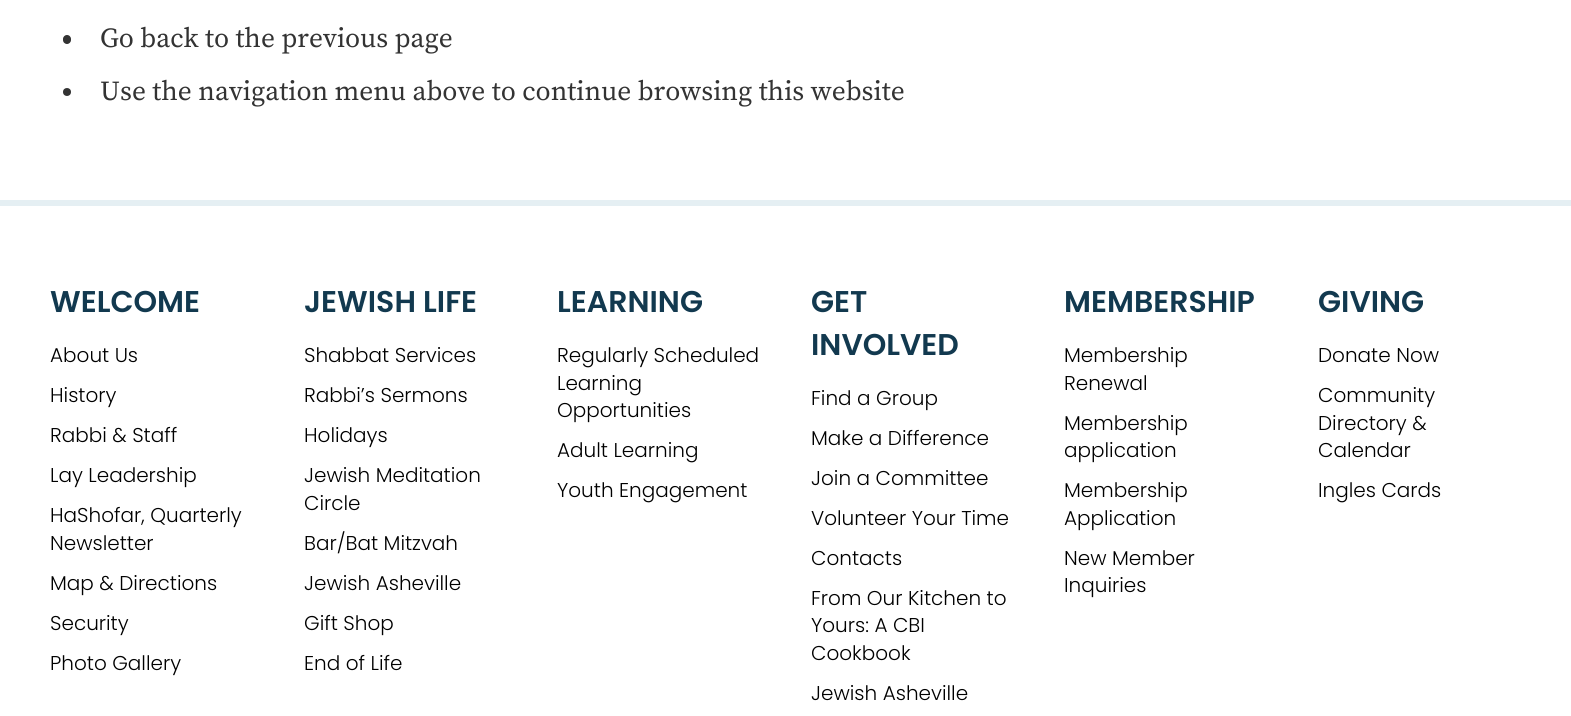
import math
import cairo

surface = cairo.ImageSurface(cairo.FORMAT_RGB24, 1571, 716)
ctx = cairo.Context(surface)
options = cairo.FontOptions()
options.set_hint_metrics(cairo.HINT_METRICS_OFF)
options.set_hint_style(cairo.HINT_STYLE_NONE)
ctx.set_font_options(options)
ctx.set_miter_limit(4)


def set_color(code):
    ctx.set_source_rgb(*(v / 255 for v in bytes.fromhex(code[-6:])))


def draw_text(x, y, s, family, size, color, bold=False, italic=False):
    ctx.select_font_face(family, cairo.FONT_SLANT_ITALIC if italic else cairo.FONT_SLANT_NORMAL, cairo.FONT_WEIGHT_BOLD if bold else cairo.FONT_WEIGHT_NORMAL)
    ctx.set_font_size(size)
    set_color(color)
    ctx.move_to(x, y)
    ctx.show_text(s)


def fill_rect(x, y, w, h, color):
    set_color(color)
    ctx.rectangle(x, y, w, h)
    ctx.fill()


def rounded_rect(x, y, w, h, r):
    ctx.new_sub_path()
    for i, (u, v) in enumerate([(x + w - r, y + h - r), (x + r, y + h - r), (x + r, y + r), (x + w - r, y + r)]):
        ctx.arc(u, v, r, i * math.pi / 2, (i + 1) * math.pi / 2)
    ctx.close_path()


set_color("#ffffff")
ctx.paint()
fill_rect(0, 200, 1571, 6, "#e5eff3")
set_color("#333333")
rounded_rect(63, 35, 8, 9, 4)
ctx.fill()
draw_text(100, 47, "Go back to the previous page", "Source Serif Pro", 27.5, "#333333")
ctx.new_path()
ctx.arc(67, 92, 4, 0, 2 * math.pi)
ctx.fill()
draw_text(100, 100, "Use the navigation menu above to continue browsing this website", "Source Serif Pro", 27.5, "#333333")
draw_text(50, 312, "WELCOME", "Poppins SemiBold", 30, "#12394f")
draw_text(50, 362, "About Us", "Poppins Light", 20, "#000000")
draw_text(50, 402, "History", "Poppins Light", 20, "#000000")
draw_text(50, 442, "Rabbi & Staff", "Poppins Light", 20, "#000000")
draw_text(50, 482, "Lay Leadership", "Poppins Light", 20, "#000000")
draw_text(50, 522, "HaShofar, Quarterly", "Poppins Light", 20, "#000000")
draw_text(50, 550, "Newsletter", "Poppins Light", 20, "#000000")
draw_text(50, 590, "Map & Directions", "Poppins Light", 20, "#000000")
draw_text(50, 630, "Security", "Poppins Light", 20, "#000000")
draw_text(50, 670, "Photo Gallery", "Poppins Light", 20, "#000000")
draw_text(304, 312, "JEWISH LIFE", "Poppins SemiBold", 30, "#12394f")
draw_text(304, 362, "Shabbat Services", "Poppins Light", 20, "#000000")
draw_text(304, 402, "Rabbi’s Sermons", "Poppins Light", 20, "#000000")
draw_text(304, 442, "Holidays", "Poppins Light", 20, "#000000")
draw_text(304, 482, "Jewish Meditation", "Poppins Light", 20, "#000000")
draw_text(304, 510, "Circle", "Poppins Light", 20, "#000000")
draw_text(304, 550, "Bar/Bat Mitzvah", "Poppins Light", 20, "#000000")
draw_text(304, 590, "Jewish Asheville", "Poppins Light", 20, "#000000")
draw_text(304, 630, "Gift Shop", "Poppins Light", 20, "#000000")
draw_text(304, 670, "End of Life", "Poppins Light", 20, "#000000")
draw_text(557, 312, "LEARNING", "Poppins SemiBold", 30, "#12394f")
draw_text(557, 362, "Regularly Scheduled", "Poppins Light", 20, "#000000")
draw_text(557, 390, "Learning", "Poppins Light", 20, "#000000")
draw_text(557, 417, "Opportunities", "Poppins Light", 20, "#000000")
draw_text(557, 457, "Adult Learning", "Poppins Light", 20, "#000000")
draw_text(557, 497, "Youth Engagement", "Poppins Light", 20, "#000000")
draw_text(811, 312, "GET", "Poppins SemiBold", 30, "#12394f")
draw_text(811, 355, "INVOLVED", "Poppins SemiBold", 30, "#12394f")
draw_text(811, 405, "Find a Group", "Poppins Light", 20, "#000000")
draw_text(811, 445, "Make a Difference", "Poppins Light", 20, "#000000")
draw_text(811, 485, "Join a Committee", "Poppins Light", 20, "#000000")
draw_text(811, 525, "Volunteer Your Time", "Poppins Light", 20, "#000000")
draw_text(811, 565, "Contacts", "Poppins Light", 20, "#000000")
draw_text(811, 605, "From Our Kitchen to", "Poppins Light", 20, "#000000")
draw_text(811, 632, "Yours: A CBI", "Poppins Light", 20, "#000000")
draw_text(811, 660, "Cookbook", "Poppins Light", 20, "#000000")
draw_text(811, 700, "Jewish Asheville", "Poppins Light", 20, "#000000")
draw_text(1064, 312, "MEMBERSHIP", "Poppins SemiBold", 30, "#12394f")
draw_text(1064, 362, "Membership", "Poppins Light", 20, "#000000")
draw_text(1064, 390, "Renewal", "Poppins Light", 20, "#000000")
draw_text(1064, 430, "Membership", "Poppins Light", 20, "#000000")
draw_text(1064, 457, "application", "Poppins Light", 20, "#000000")
draw_text(1064, 497, "Membership", "Poppins Light", 20, "#000000")
draw_text(1064, 525, "Application", "Poppins Light", 20, "#000000")
draw_text(1064, 565, "New Member", "Poppins Light", 20, "#000000")
draw_text(1064, 592, "Inquiries", "Poppins Light", 20, "#000000")
draw_text(1318, 312, "GIVING", "Poppins SemiBold", 30, "#12394f")
draw_text(1318, 362, "Donate Now", "Poppins Light", 20, "#000000")
draw_text(1318, 402, "Community", "Poppins Light", 20, "#000000")
draw_text(1318, 430, "Directory &", "Poppins Light", 20, "#000000")
draw_text(1318, 457, "Calendar", "Poppins Light", 20, "#000000")
draw_text(1318, 497, "Ingles Cards", "Poppins Light", 20, "#000000")
surface.write_to_png("output.png")
